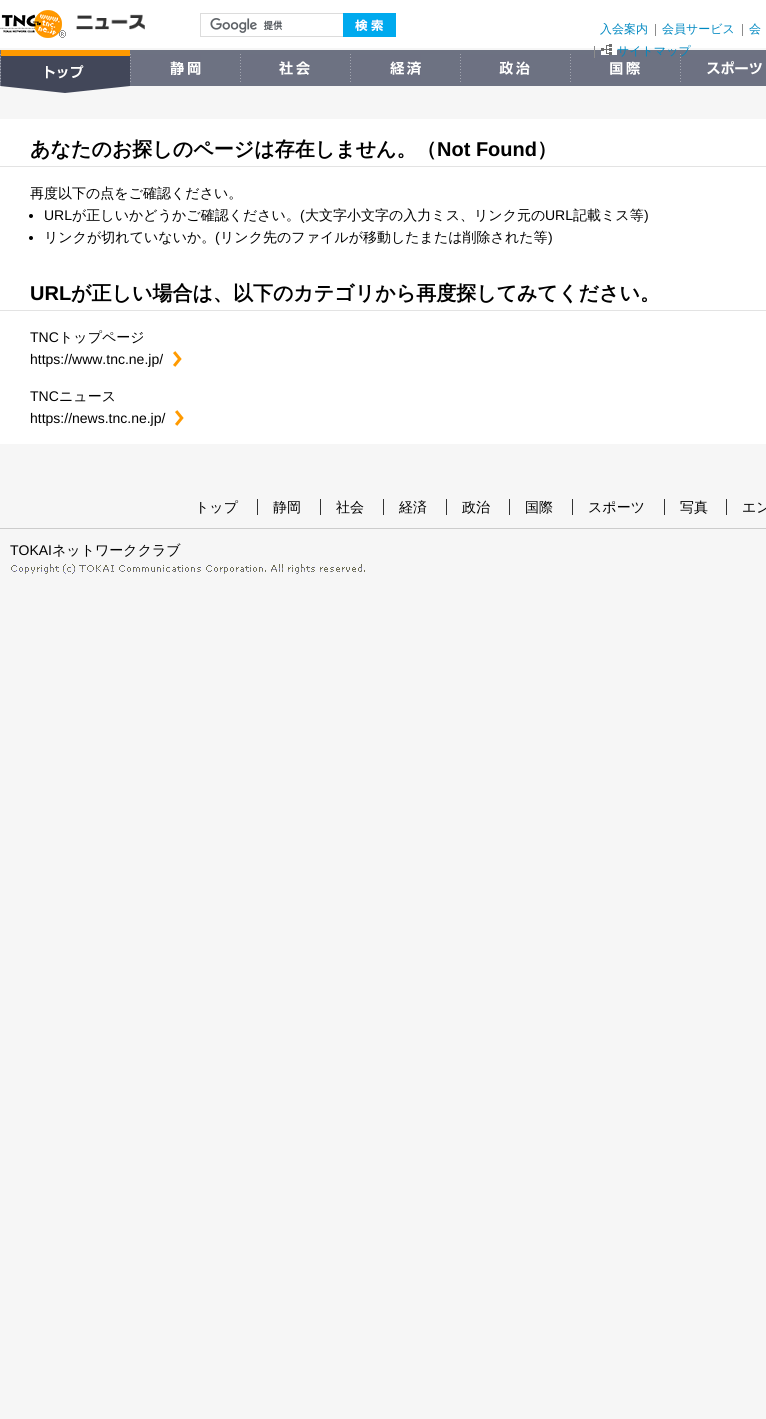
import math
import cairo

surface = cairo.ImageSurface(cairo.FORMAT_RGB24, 766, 1419)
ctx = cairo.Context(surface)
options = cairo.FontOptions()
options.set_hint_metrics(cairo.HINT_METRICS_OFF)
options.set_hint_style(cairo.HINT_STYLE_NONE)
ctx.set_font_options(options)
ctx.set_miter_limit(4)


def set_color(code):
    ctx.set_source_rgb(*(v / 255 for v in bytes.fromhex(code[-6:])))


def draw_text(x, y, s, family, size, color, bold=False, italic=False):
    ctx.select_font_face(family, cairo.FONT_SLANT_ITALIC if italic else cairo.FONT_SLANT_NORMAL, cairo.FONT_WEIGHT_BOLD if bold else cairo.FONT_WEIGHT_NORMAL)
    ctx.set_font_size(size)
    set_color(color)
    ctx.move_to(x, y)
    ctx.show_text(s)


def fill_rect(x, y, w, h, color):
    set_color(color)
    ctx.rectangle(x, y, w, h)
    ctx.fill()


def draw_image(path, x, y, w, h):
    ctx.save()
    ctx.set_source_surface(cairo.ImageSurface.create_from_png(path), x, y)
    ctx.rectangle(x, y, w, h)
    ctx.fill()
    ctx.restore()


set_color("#f6f6f6")
ctx.paint()
fill_rect(0, 0, 766, 48, "#ffffff")
draw_image("assets/img1.png", 0, 10, 66, 28)
draw_image("assets/img2.png", 76, 14, 69, 16)
draw_image("assets/img3.png", 210, 18, 73, 15)
ctx.rectangle(200.5, 13.5, 144, 23)
set_color("#dcdcdc")
ctx.set_line_width(1)
ctx.stroke()
draw_image("assets/img4.png", 343, 13, 53, 24)
draw_text(600, 33, "入会案内", "WenQuanYi Zen Hei Medium", 12, "#0088c1")
draw_text(662, 33, "会員サービス", "WenQuanYi Zen Hei Medium", 12, "#0088c1")
fill_rect(655, 24, 1, 12, "#8c8c8c")
draw_text(749, 33, "会", "WenQuanYi Zen Hei Medium", 12, "#0088c1")
fill_rect(742, 24, 1, 12, "#8c8c8c")
fill_rect(130, 50, 636, 36, "#6d7282")
draw_image("assets/img11.png", 570, 54, 70, 28)
draw_image("assets/img5.png", 601, 44, 16, 11)
draw_image("assets/img12.png", 680, 54, 82, 28)
draw_text(617, 55, "サイトマップ", "WenQuanYi Zen Hei Medium", 12, "#0088c1")
fill_rect(594, 46, 1, 12, "#8c8c8c")
draw_image("assets/img6.png", 0, 50, 130, 43)
draw_image("assets/img7.png", 130, 54, 71, 28)
draw_image("assets/img8.png", 240, 54, 70, 28)
draw_image("assets/img9.png", 350, 54, 71, 28)
draw_image("assets/img10.png", 460, 54, 70, 28)
fill_rect(0, 119, 766, 325, "#ffffff")
fill_rect(0, 166, 766, 1, "#e3e3e3")
draw_text(30, 156, "あなたのお探しのページは存在しません。（", "WenQuanYi Zen Hei", 20, "#000000", bold=True)
draw_text(437, 156, "Not Found", "Liberation Sans", 20, "#000000", bold=True)
draw_text(537, 156, "）", "WenQuanYi Zen Hei", 20, "#000000", bold=True)
draw_text(30, 198, "再度以下の点をご確認ください。", "WenQuanYi Zen Hei Medium", 14, "#000000")
ctx.new_path()
ctx.arc(31, 216, 2, 0, 2 * math.pi)
ctx.fill()
draw_text(44, 220, "URL", "Liberation Sans", 14, "#000000")
draw_text(72, 220, "が正しいかどうかご確認ください。", "WenQuanYi Zen Hei Medium", 14, "#000000")
draw_text(300, 220, "(", "Liberation Sans", 14, "#000000")
draw_text(305, 220, "大文字小文字の入力ミス、リンク元の", "WenQuanYi Zen Hei Medium", 14, "#000000")
draw_text(545, 220, "URL", "Liberation Sans", 14, "#000000")
draw_text(573, 220, "記載ミス等", "WenQuanYi Zen Hei Medium", 14, "#000000")
draw_text(644, 220, ")", "Liberation Sans", 14, "#000000")
ctx.new_path()
ctx.arc(31, 238, 2, 0, 2 * math.pi)
ctx.fill()
draw_text(44, 242, "リンクが切れていないか。", "WenQuanYi Zen Hei Medium", 14, "#000000")
draw_text(215, 242, "(", "Liberation Sans", 14, "#000000")
draw_text(220, 242, "リンク先のファイルが移動したまたは削除された等", "WenQuanYi Zen Hei Medium", 14, "#000000")
draw_text(548, 242, ")", "Liberation Sans", 14, "#000000")
fill_rect(0, 310, 766, 1, "#e3e3e3")
draw_text(30, 300, "URL", "Liberation Sans", 20, "#000000", bold=True)
draw_text(71, 300, "が正しい場合は、以下のカテゴリから再度探してみてください。", "WenQuanYi Zen Hei", 20, "#000000", bold=True)
draw_text(30, 342, "TNC", "Liberation Sans", 14, "#000000")
draw_text(59, 342, "トップページ", "WenQuanYi Zen Hei Medium", 14, "#000000")
draw_text(30, 364, "https://www.tnc.ne.jp/", "Liberation Sans", 14, "#000000")
draw_image("assets/img13.png", 173, 351, 9, 16)
draw_text(30, 401, "TNC", "Liberation Sans", 14, "#000000")
draw_text(59, 401, "ニュース", "WenQuanYi Zen Hei Medium", 14, "#000000")
draw_text(30, 423, "https://news.tnc.ne.jp/", "Liberation Sans", 14, "#000000")
draw_image("assets/img13.png", 175, 410, 9, 16)
draw_text(195, 512, "トップ", "WenQuanYi Zen Hei Medium", 14, "#000000")
draw_text(273, 512, "静岡", "WenQuanYi Zen Hei Medium", 14, "#000000")
fill_rect(257, 499, 1, 16, "#333333")
draw_text(336, 512, "社会", "WenQuanYi Zen Hei Medium", 14, "#000000")
fill_rect(320, 499, 1, 16, "#333333")
draw_text(399, 512, "経済", "WenQuanYi Zen Hei Medium", 14, "#000000")
fill_rect(383, 499, 1, 16, "#333333")
draw_text(462, 512, "政治", "WenQuanYi Zen Hei Medium", 14, "#000000")
fill_rect(446, 499, 1, 16, "#333333")
draw_text(525, 512, "国際", "WenQuanYi Zen Hei Medium", 14, "#000000")
fill_rect(509, 499, 1, 16, "#333333")
draw_text(588, 512, "スポーツ", "WenQuanYi Zen Hei Medium", 14, "#000000")
fill_rect(572, 499, 1, 16, "#333333")
draw_text(680, 512, "写真", "WenQuanYi Zen Hei Medium", 14, "#000000")
fill_rect(664, 499, 1, 16, "#333333")
draw_text(742, 512, "エン", "WenQuanYi Zen Hei Medium", 14, "#000000")
fill_rect(726, 499, 1, 16, "#333333")
fill_rect(0, 528, 766, 1, "#cccccc")
draw_text(10, 555, "TOKAI", "Liberation Sans", 14, "#000000")
draw_text(52, 555, "ネットワーククラブ", "WenQuanYi Zen Hei Medium", 14, "#000000")
draw_image("assets/img14.png", 11, 564, 354, 10)
surface.write_to_png("output.png")
